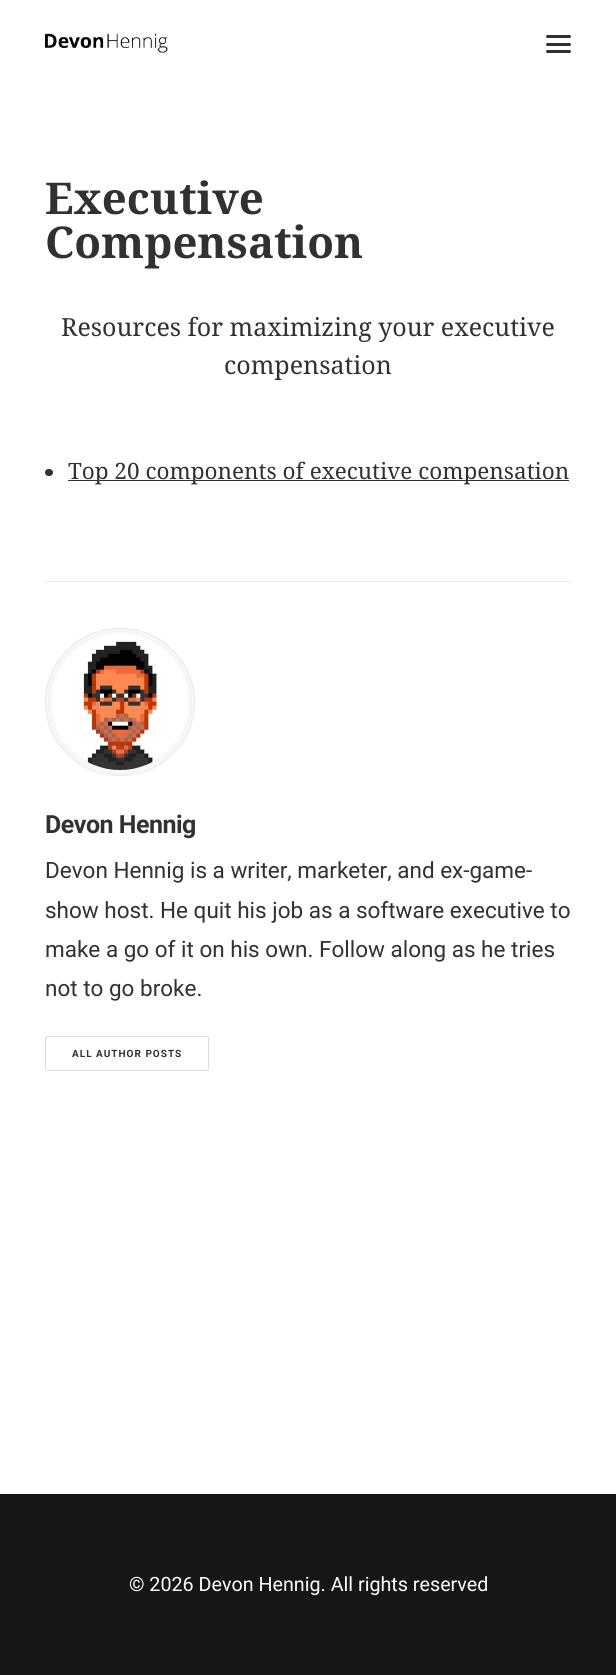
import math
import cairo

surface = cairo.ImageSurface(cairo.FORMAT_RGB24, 616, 1675)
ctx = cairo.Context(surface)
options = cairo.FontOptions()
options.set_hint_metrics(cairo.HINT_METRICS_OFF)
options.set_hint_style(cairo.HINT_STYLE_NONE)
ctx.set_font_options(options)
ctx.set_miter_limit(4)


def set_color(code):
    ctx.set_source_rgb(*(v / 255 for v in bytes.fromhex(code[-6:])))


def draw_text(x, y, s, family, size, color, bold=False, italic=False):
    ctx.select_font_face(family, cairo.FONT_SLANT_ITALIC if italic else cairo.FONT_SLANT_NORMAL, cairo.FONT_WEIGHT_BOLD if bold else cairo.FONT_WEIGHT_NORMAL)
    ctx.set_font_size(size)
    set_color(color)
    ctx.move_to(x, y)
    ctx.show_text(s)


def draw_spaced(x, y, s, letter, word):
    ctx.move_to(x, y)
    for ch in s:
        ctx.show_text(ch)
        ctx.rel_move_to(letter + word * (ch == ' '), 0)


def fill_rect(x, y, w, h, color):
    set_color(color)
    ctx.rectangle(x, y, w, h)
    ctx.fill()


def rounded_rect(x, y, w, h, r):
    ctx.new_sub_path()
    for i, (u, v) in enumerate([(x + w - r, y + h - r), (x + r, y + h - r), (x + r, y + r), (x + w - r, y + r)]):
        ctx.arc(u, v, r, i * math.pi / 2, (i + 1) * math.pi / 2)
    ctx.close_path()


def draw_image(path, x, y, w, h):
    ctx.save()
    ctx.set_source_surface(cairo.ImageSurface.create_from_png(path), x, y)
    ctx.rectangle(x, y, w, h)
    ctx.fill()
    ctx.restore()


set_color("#141618")
ctx.paint()
fill_rect(0, 0, 616, 1494, "#ffffff")
draw_image("assets/img1.png", 45, 33, 123, 20)
set_color("#303133")
rounded_rect(546, 43, 25, 3, 1.5)
ctx.fill()
rounded_rect(546, 35, 25, 3, 1.5)
ctx.fill()
rounded_rect(546, 50, 25, 3, 1.5)
ctx.fill()
draw_text(45, 214, "Executive", "Droid Serif", 43.75, "#303133", bold=True)
draw_text(45, 258, "Compensation", "Droid Serif", 43.75, "#303133", bold=True)
draw_text(61, 336, "Resources for maximizing your executive", "Droid Serif", 25, "#303133")
draw_text(224, 374, "compensation", "Droid Serif", 25, "#303133")
rounded_rect(45, 469, 8, 7, 3.5)
ctx.fill()
fill_rect(68, 480, 501, 1, "#303133")
draw_text(68, 479, "Top 20 components of executive compensation", "Droid Serif", 22.5, "#303133")
fill_rect(45, 581, 526, 1, "#eaeaea")
set_color("#f7f7f7")
rounded_rect(45.5, 628.5, 149, 147, 73.5)
ctx.fill_preserve()
set_color("#eaeaea")
ctx.set_line_width(1)
ctx.stroke()
draw_image("assets/img2.png", 51, 634, 138, 136)
ctx.select_font_face("Roboto", cairo.FONT_SLANT_NORMAL, cairo.FONT_WEIGHT_BOLD)
ctx.set_font_size(25)
set_color("#303133")
draw_spaced(45, 833, "Devon Hennig", -0.5, 0)
draw_text(45, 878, "Devon Hennig is a writer, marketer, and ex-game-", "Roboto", 22.5, "#303133")
draw_text(45, 918, "show host. He quit his job as a software executive to", "Roboto", 22.5, "#303133")
draw_text(45, 957, "make a go of it on his own. Follow along as he tries", "Roboto", 22.5, "#303133")
draw_text(45, 996, "not to go broke.", "Roboto", 22.5, "#303133")
rounded_rect(45.5, 1036.5, 163, 34, 1.5)
set_color("#dddddd")
ctx.stroke()
ctx.select_font_face("Roboto", cairo.FONT_SLANT_NORMAL, cairo.FONT_WEIGHT_BOLD)
ctx.set_font_size(10)
set_color("#303133")
draw_spaced(72, 1057, "ALL AUTHOR POSTS", 1, 0)
draw_text(129, 1591, "© 2026 Devon Hennig. All rights reserved", "Roboto", 19.7, "#ffffff")
surface.write_to_png("output.png")
